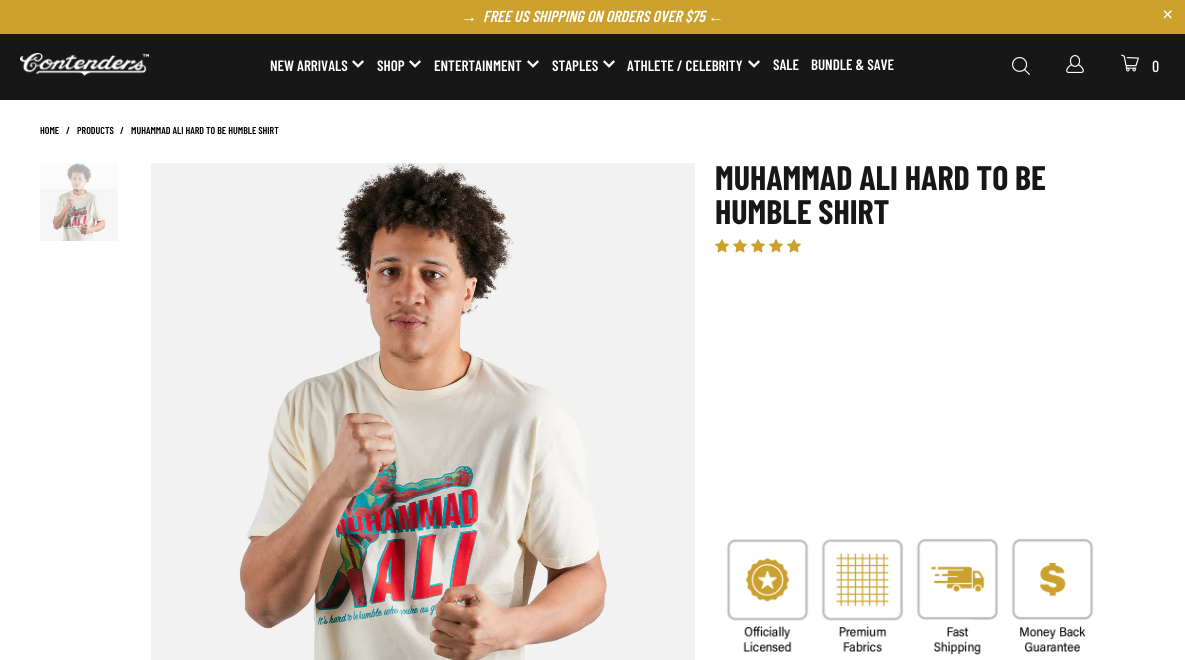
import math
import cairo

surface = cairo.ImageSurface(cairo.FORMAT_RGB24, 1185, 660)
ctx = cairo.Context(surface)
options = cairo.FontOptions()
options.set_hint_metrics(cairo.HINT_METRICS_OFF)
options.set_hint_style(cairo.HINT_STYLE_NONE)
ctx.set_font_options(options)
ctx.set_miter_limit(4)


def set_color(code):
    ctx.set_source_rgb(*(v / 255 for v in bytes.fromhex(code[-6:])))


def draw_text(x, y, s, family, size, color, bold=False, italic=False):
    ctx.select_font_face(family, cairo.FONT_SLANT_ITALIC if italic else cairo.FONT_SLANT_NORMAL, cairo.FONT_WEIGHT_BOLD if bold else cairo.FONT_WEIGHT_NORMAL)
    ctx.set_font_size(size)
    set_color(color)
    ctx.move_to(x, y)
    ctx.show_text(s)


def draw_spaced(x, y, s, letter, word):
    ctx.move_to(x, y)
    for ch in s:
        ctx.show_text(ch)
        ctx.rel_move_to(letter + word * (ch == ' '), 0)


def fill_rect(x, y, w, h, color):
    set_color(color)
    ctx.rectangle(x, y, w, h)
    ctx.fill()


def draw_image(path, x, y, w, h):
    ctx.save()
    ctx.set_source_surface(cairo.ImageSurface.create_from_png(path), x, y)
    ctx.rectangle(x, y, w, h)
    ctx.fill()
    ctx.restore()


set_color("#ffffff")
ctx.paint()
fill_rect(0, 0, 1185, 34, "#cba02c")
draw_text(461, 22, "→", "Liberation Serif", 16, "#ffffff", bold=True, italic=True)
draw_text(483, 22, "FREE US SHIPPING ON ORDERS OVER $75", "Barlow Condensed SemiBold", 16, "#ffffff", italic=True)
draw_text(708, 22, "←", "Liberation Serif", 16, "#ffffff", bold=True, italic=True)
draw_text(1162, 21, "×", "Liberation Serif", 20, "#ffffff", bold=True)
fill_rect(0, 34, 1185, 66, "#171717")
draw_image("assets/img1.png", 20, 53, 129, 23)
draw_text(270, 71, "NEW ARRIVALS", "Barlow Condensed SemiBold", 15, "#ffffff")
draw_image("assets/img2.png", 352, 60, 12, 8)
draw_text(377, 71, "SHOP", "Barlow Condensed SemiBold", 15, "#ffffff")
draw_image("assets/img2.png", 409, 60, 12, 8)
draw_text(434, 71, "ENTERTAINMENT", "Barlow Condensed SemiBold", 15, "#ffffff")
draw_image("assets/img2.png", 527, 60, 12, 8)
draw_text(552, 71, "STAPLES", "Barlow Condensed SemiBold", 15, "#ffffff")
draw_image("assets/img2.png", 603, 60, 12, 8)
draw_text(627, 71, "ATHLETE / CELEBRITY", "Barlow Condensed SemiBold", 15, "#ffffff")
draw_image("assets/img2.png", 748, 60, 12, 8)
draw_text(773, 70, "SALE", "Barlow Condensed SemiBold", 15, "#ffffff")
draw_text(811, 70, "BUNDLE & SAVE", "Barlow Condensed SemiBold", 15, "#ffffff")
draw_image("assets/img3.png", 1012, 57, 18, 18)
draw_image("assets/img4.png", 1066, 55, 18, 18)
draw_image("assets/img5.png", 1121, 54, 18, 18)
ctx.select_font_face("Barlow Condensed Medium")
ctx.set_font_size(16)
draw_spaced(1152, 72, "0", 1, 0)
draw_text(40, 134, "HOME", "Barlow Condensed SemiBold", 10, "#000000")
draw_text(66, 134, "/", "Barlow Condensed SemiBold", 10, "#000000")
draw_text(77, 134, "PRODUCTS", "Barlow Condensed SemiBold", 10, "#000000")
draw_text(120, 134, "/", "Barlow Condensed SemiBold", 10, "#000000")
draw_text(131, 134, "MUHAMMAD ALI HARD TO BE HUMBLE SHIRT", "Barlow Condensed SemiBold", 10, "#000000")
draw_image("assets/img6.png", 40, 163, 78, 78)
ctx.set_source_rgba(1, 1, 1, 0.5)
ctx.rectangle(40, 163, 78, 26)
ctx.fill()
draw_image("assets/img7.png", 151, 163, 544, 497)
draw_text(715, 190, "MUHAMMAD ALI HARD TO BE", "Barlow Condensed", 34, "#171717", bold=True)
draw_text(715, 224, "HUMBLE SHIRT", "Barlow Condensed", 34, "#171717", bold=True)
draw_image("assets/img8.png", 715, 239, 14, 14)
draw_image("assets/img8.png", 733, 239, 14, 14)
draw_image("assets/img8.png", 751, 239, 14, 14)
draw_image("assets/img8.png", 769, 239, 14, 14)
draw_image("assets/img8.png", 787, 239, 14, 14)
draw_image("assets/img9.png", 726, 539, 83, 113)
draw_image("assets/img10.png", 821, 539, 83, 113)
draw_image("assets/img11.png", 916, 538, 83, 117)
draw_image("assets/img12.png", 1011, 538, 83, 114)
surface.write_to_png("output.png")
